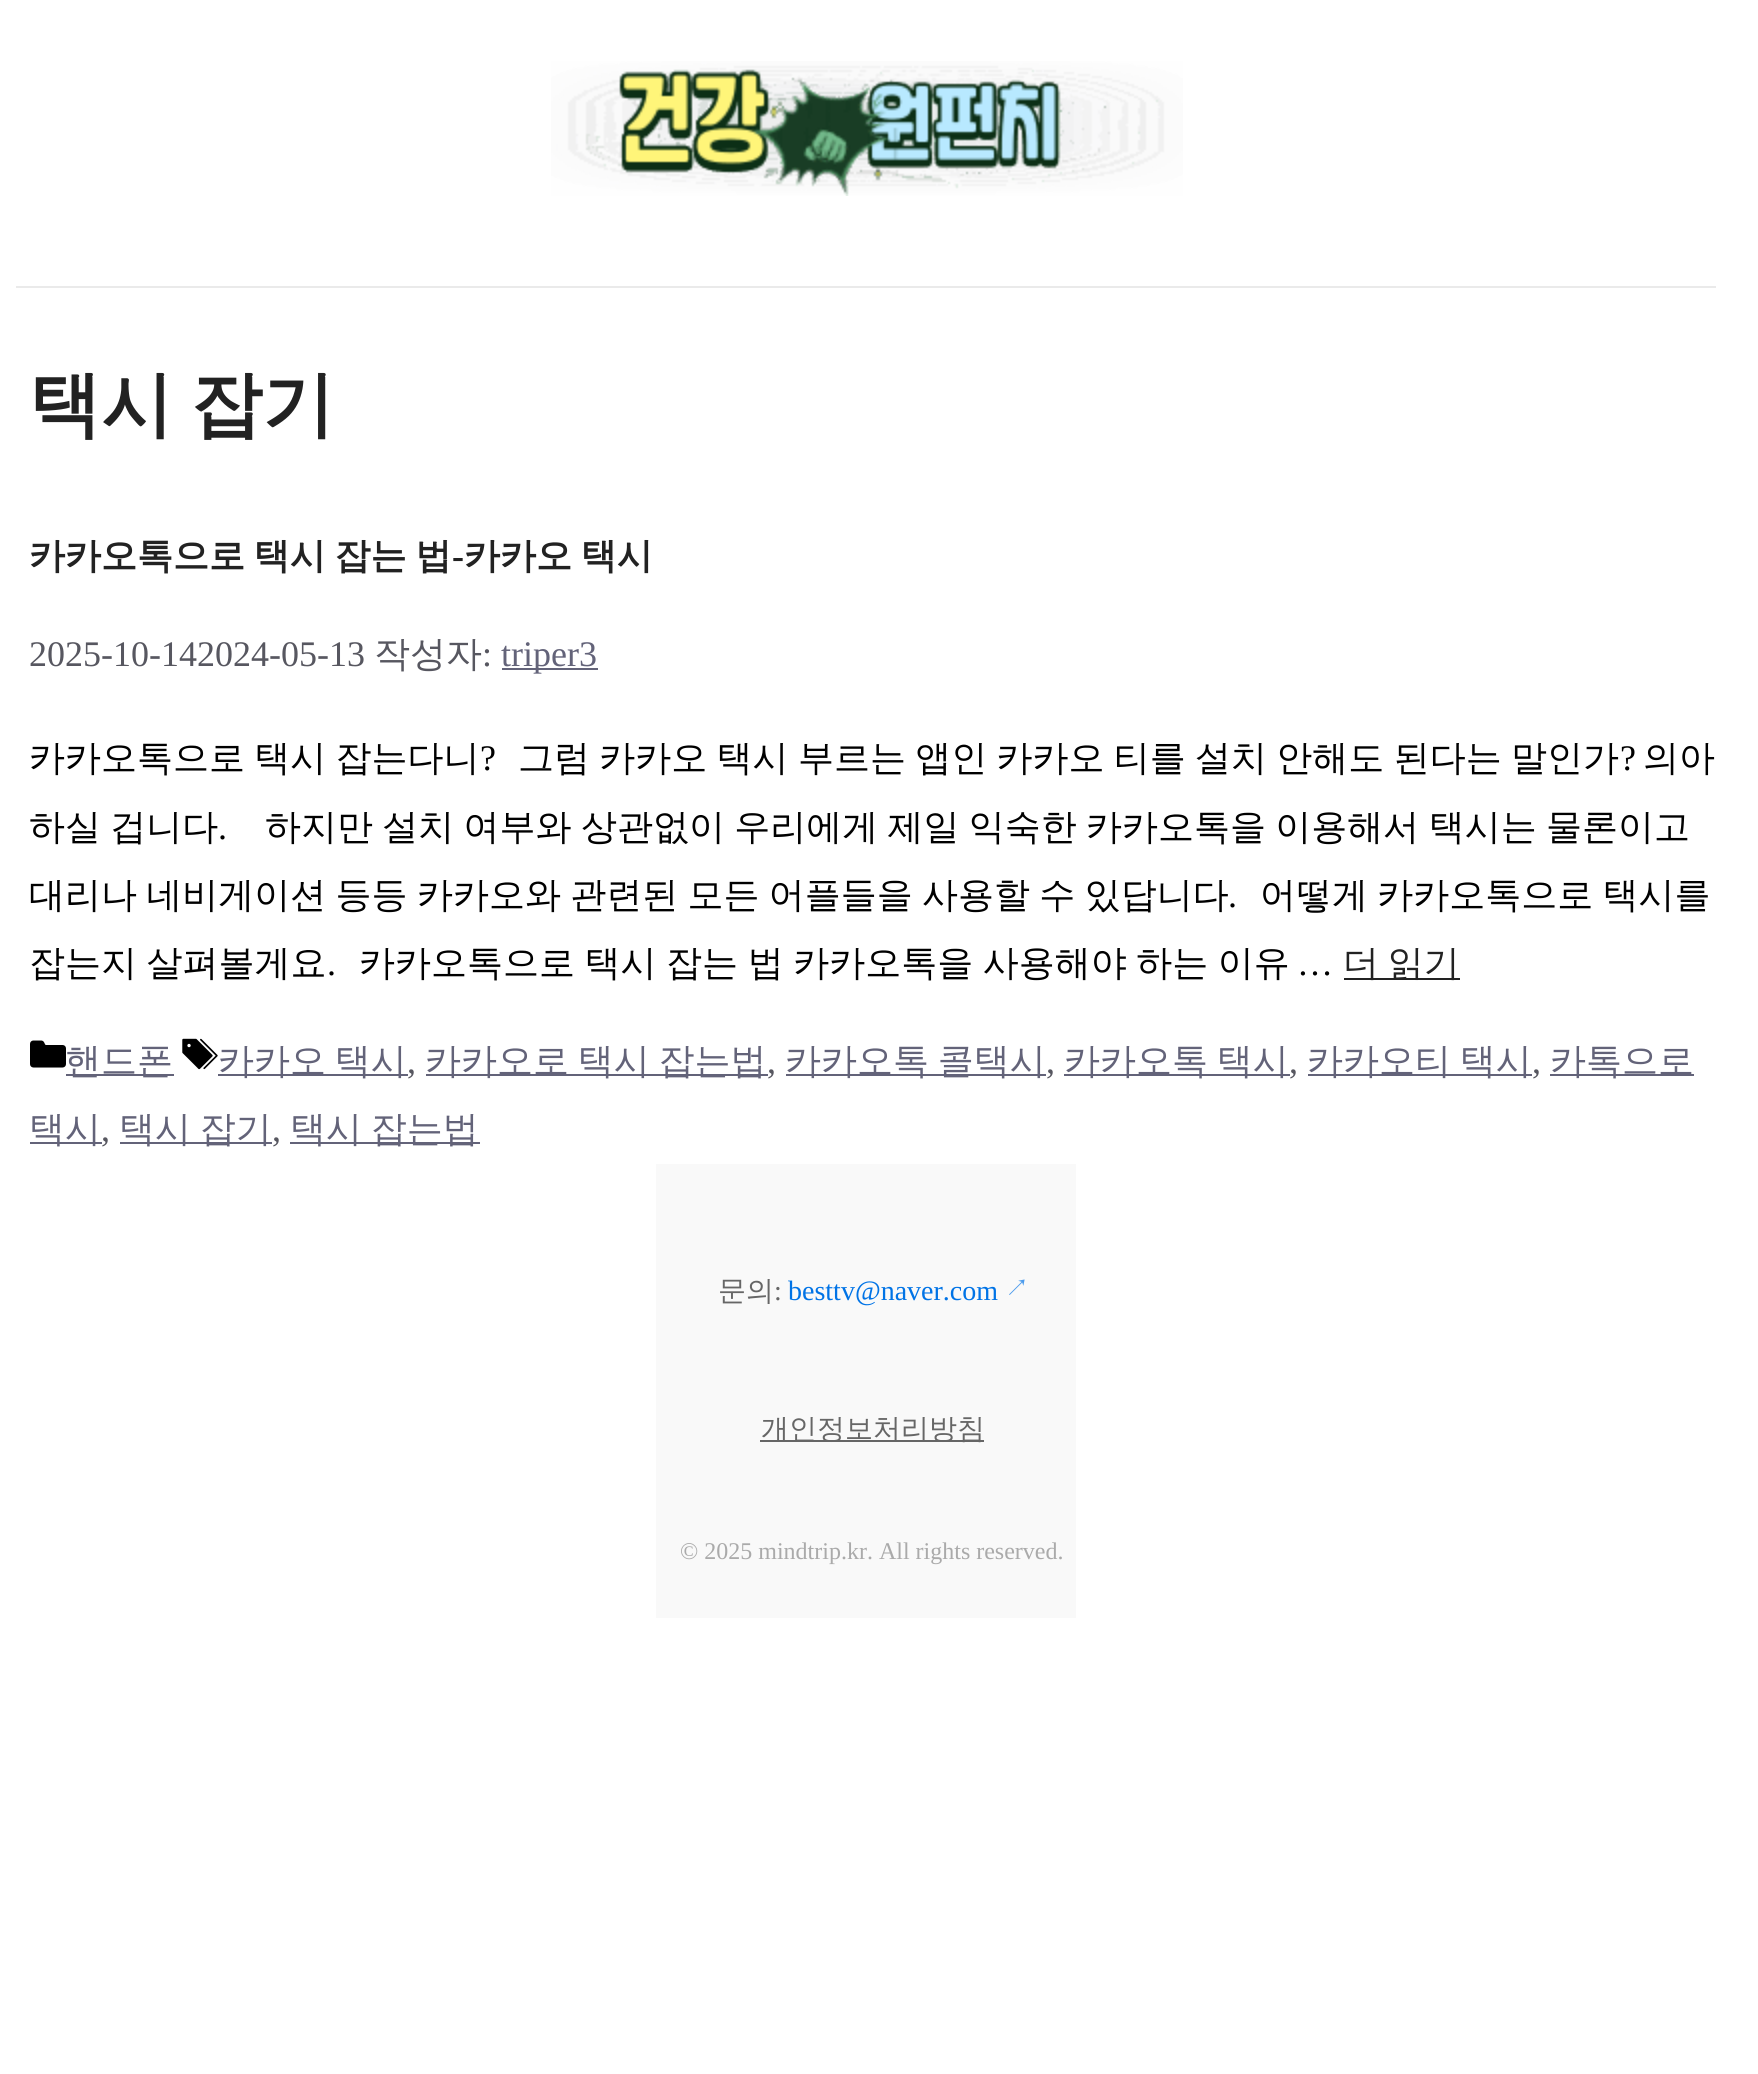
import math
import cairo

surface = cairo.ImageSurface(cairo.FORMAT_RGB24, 1758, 2074)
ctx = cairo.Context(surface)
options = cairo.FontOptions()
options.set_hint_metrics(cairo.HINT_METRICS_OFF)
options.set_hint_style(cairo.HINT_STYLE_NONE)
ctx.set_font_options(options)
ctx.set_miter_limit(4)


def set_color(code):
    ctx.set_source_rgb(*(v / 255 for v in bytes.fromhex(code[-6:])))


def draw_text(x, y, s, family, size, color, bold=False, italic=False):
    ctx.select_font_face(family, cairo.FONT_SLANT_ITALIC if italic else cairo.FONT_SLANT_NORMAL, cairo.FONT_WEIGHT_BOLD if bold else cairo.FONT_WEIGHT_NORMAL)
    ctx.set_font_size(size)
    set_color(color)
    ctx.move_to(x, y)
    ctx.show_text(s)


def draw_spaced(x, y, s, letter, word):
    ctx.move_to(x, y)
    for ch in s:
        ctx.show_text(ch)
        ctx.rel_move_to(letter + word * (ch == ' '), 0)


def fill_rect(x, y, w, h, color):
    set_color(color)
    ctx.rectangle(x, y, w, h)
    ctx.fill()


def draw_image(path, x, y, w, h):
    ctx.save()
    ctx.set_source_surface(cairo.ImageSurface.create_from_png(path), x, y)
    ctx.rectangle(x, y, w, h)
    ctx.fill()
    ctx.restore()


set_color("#ffffff")
ctx.paint()
fill_rect(16, 286, 1700, 2, "#eaeaea")
draw_image("assets/img1.png", 551, 61, 632, 135)
ctx.select_font_face("WenQuanYi Zen Hei", cairo.FONT_SLANT_NORMAL, cairo.FONT_WEIGHT_BOLD)
ctx.set_font_size(72)
set_color("#222222")
draw_spaced(29, 429, "택시 잡기", 0, -4)
ctx.set_font_size(36)
draw_spaced(29, 568, "카카오톡으로 택시 잡는 법", 0, -2)
draw_text(452, 568, "-", "Liberation Serif", 36, "#222222", bold=True)
ctx.select_font_face("WenQuanYi Zen Hei", cairo.FONT_SLANT_NORMAL, cairo.FONT_WEIGHT_BOLD)
draw_spaced(464, 568, "카카오 택시", 0, -2)
draw_text(29, 666, "2025-10-142024-05-13", "Liberation Serif", 36, "#575760")
draw_text(374, 666, "작성자", "WenQuanYi Zen Hei Medium", 36, "#575760")
draw_text(482, 666, ":", "Liberation Serif", 36, "#575760")
fill_rect(502, 668, 96, 2, "#636379")
draw_text(501, 666, "triper3", "Liberation Serif", 36, "#636379")
ctx.select_font_face("WenQuanYi Zen Hei Medium")
set_color("#000000")
draw_spaced(29, 770, "카카오톡으로 택시 잡는다니", 0, -1.5)
draw_text(480, 770, "?", "Liberation Serif", 36, "#000000")
ctx.select_font_face("WenQuanYi Zen Hei Medium")
draw_spaced(518, 770, "그럼 카카오 택시 부르는 앱인 카카오 티를 설치 안해도 된다는 말인가", 0, -1.5)
draw_text(1620, 770, "?", "Liberation Serif", 36, "#000000")
draw_text(1643, 770, "의아", "WenQuanYi Zen Hei Medium", 36, "#000000")
draw_spaced(29, 839, "하실 겁니다", 0, -1.5)
draw_text(218, 839, ".", "Liberation Serif", 36, "#000000")
ctx.select_font_face("WenQuanYi Zen Hei Medium")
draw_spaced(265, 839, "하지만 설치 여부와 상관없이 우리에게 제일 익숙한 카카오톡을 이용해서 택시는 물론이고", 0, -1.5)
draw_spaced(29, 907, "대리나 네비게이션 등등 카카오와 관련된 모든 어플들을 사용할 수 있답니다", 0, -1.5)
draw_text(1228, 907, ".", "Liberation Serif", 36, "#000000")
ctx.select_font_face("WenQuanYi Zen Hei Medium")
draw_spaced(1260, 907, "어떻게 카카오톡으로 택시를", 0, -1.5)
draw_spaced(29, 975, "잡는지 살펴볼게요", 0, -1.25)
draw_text(327, 975, ".", "Liberation Serif", 36, "#000000")
ctx.select_font_face("WenQuanYi Zen Hei Medium")
draw_spaced(359, 975, "카카오톡으로 택시 잡는 법 카카오톡을 사용해야 하는 이유", 0, -1.25)
draw_text(1297, 975, "…", "Liberation Serif", 36, "#000000")
fill_rect(1344, 978, 116, 2, "#222222")
ctx.select_font_face("WenQuanYi Zen Hei Medium")
draw_spaced(1343, 975, "더 읽기", 0, -2)
draw_image("assets/img2.png", 30, 1040, 36, 28)
fill_rect(66, 1074, 108, 2, "#636379")
draw_text(65, 1073, "핸드폰", "WenQuanYi Zen Hei Medium", 36, "#636379")
draw_image("assets/img3.png", 182, 1038, 36, 32)
fill_rect(218, 1074, 190, 2, "#636379")
draw_spaced(218, 1073, "카카오 택시", 0, -2)
draw_text(407, 1073, ",", "Liberation Serif", 36, "#575760")
fill_rect(426, 1074, 342, 2, "#636379")
ctx.select_font_face("WenQuanYi Zen Hei Medium")
draw_spaced(425, 1073, "카카오로 택시 잡는법", 0, -2)
draw_text(767, 1073, ",", "Liberation Serif", 36, "#575760")
fill_rect(786, 1074, 260, 2, "#636379")
ctx.select_font_face("WenQuanYi Zen Hei Medium")
draw_spaced(785, 1073, "카카오톡 콜택시", 0, -2)
draw_text(1046, 1073, ",", "Liberation Serif", 36, "#575760")
fill_rect(1064, 1074, 226, 2, "#636379")
ctx.select_font_face("WenQuanYi Zen Hei Medium")
draw_spaced(1064, 1073, "카카오톡 택시", 0, -2)
draw_text(1289, 1073, ",", "Liberation Serif", 36, "#575760")
fill_rect(1308, 1074, 224, 2, "#636379")
ctx.select_font_face("WenQuanYi Zen Hei Medium")
draw_spaced(1307, 1073, "카카오티 택시", 0, -2)
draw_text(1532, 1073, ",", "Liberation Serif", 36, "#575760")
fill_rect(1550, 1074, 144, 2, "#636379")
draw_text(1550, 1073, "카톡으로", "WenQuanYi Zen Hei Medium", 36, "#636379")
fill_rect(30, 1142, 72, 2, "#636379")
draw_text(29, 1141, "택시", "WenQuanYi Zen Hei Medium", 36, "#636379")
draw_text(101, 1141, ",", "Liberation Serif", 36, "#575760")
fill_rect(120, 1142, 152, 2, "#636379")
ctx.select_font_face("WenQuanYi Zen Hei Medium")
draw_spaced(119, 1141, "택시 잡기", 0, -2)
draw_text(272, 1141, ",", "Liberation Serif", 36, "#575760")
fill_rect(290, 1142, 190, 2, "#636379")
ctx.select_font_face("WenQuanYi Zen Hei Medium")
draw_spaced(290, 1141, "택시 잡는법", 0, -2)
fill_rect(656, 1164, 420, 454, "#f9f9f9")
draw_text(718, 1300, "문의", "WenQuanYi Zen Hei Medium", 28, "#666666")
draw_text(774, 1300, ":", "Liberation Serif", 28, "#666666")
draw_text(788, 1300, "besttv@naver.com", "Liberation Serif", 28, "#0073e6")
draw_text(1005, 1296, "↗", "WenQuanYi Zen Hei Medium", 24, "#4b9bec")
fill_rect(760, 1440, 224, 2, "#666666")
draw_text(761, 1438, "개인정보처리방침", "WenQuanYi Zen Hei Medium", 28, "#666666")
draw_text(680, 1559, "© 2025 mindtrip.kr. All rights reserved.", "Liberation Serif", 24, "#aaaaaa")
surface.write_to_png("output.png")
